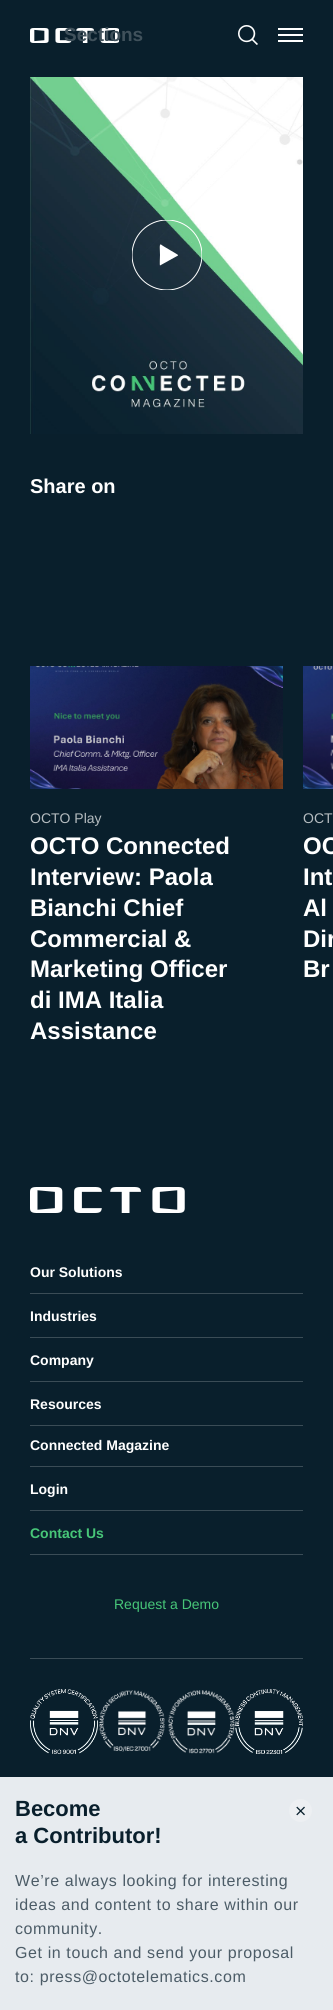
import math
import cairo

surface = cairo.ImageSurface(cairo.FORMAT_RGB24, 333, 2010)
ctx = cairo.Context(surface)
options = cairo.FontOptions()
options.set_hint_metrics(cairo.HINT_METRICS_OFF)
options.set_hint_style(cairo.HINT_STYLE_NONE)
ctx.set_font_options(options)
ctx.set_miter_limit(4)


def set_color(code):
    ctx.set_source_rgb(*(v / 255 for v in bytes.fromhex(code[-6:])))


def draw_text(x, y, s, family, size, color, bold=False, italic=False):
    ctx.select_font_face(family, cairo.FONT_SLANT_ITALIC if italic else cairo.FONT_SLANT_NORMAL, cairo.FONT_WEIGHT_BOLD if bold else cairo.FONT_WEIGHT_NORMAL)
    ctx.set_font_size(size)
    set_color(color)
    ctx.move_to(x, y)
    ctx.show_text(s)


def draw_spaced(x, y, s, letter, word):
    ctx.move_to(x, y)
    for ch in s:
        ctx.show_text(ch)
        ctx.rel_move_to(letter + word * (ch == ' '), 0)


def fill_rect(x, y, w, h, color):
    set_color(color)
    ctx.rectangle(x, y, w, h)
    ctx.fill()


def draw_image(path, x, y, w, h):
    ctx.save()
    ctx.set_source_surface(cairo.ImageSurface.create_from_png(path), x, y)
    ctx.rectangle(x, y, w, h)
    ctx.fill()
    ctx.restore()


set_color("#091f2c")
ctx.paint()
draw_image("assets/img2.png", 30, 28, 89, 15)
draw_text(64, 41, "Sections", "Liberation Sans", 19, "#40515b", bold=True)
draw_image("assets/img1.png", 238, 25, 20, 20)
fill_rect(278, 28, 25, 2, "#ffffff")
fill_rect(278, 34, 25, 2, "#ffffff")
fill_rect(278, 40, 25, 2, "#ffffff")
draw_image("assets/img3.png", 30, 77, 273, 357)
ctx.save()
ctx.rectangle(132, 220, 70, 70)
ctx.clip()
ctx.arc(167, 255, 35, 0, 2 * math.pi)
ctx.set_line_width(1)
ctx.stroke()
ctx.restore()
ctx.new_path()
ctx.move_to(161, 244.5)
ctx.curve_to(162.5, 246, 178, 254.5, 178, 255)
ctx.line_to(178, 255.5)
ctx.line_to(160, 265.5)
ctx.curve_to(159.5, 265, 160, 256.5, 160, 255)
ctx.curve_to(160, 250, 159, 243.5, 161, 244.5)
ctx.close_path()
ctx.fill()
draw_text(30, 493, "Share on", "Liberation Sans", 20, "#ffffff", bold=True)
draw_image("assets/img4.png", 30, 666, 253, 123)
draw_text(30, 823, "OCTO Play", "Liberation Sans", 14, "#b5bcc0")
draw_text(30, 854, "OCTO Connected", "Liberation Sans", 24, "#ffffff", bold=True)
draw_text(30, 885, "Interview: Paola", "Liberation Sans", 24, "#ffffff", bold=True)
draw_text(30, 916, "Bianchi Chief", "Liberation Sans", 24, "#ffffff", bold=True)
draw_text(30, 947, "Commercial &", "Liberation Sans", 24, "#ffffff", bold=True)
draw_text(30, 977, "Marketing Officer", "Liberation Sans", 24, "#ffffff", bold=True)
draw_text(30, 1008, "di IMA Italia", "Liberation Sans", 24, "#ffffff", bold=True)
draw_text(30, 1039, "Assistance", "Liberation Sans", 24, "#ffffff", bold=True)
draw_image("assets/img5.png", 303, 666, 30, 123)
draw_text(303, 823, "OCT", "Liberation Sans", 14, "#b5bcc0")
draw_text(303, 854, "OC", "Liberation Sans", 24, "#ffffff", bold=True)
draw_text(303, 885, "Int", "Liberation Sans", 24, "#ffffff", bold=True)
draw_text(303, 916, "Al", "Liberation Sans", 24, "#ffffff", bold=True)
draw_text(303, 947, "Dir", "Liberation Sans", 24, "#ffffff", bold=True)
draw_text(303, 977, "Br", "Liberation Sans", 24, "#ffffff", bold=True)
draw_image("assets/img6.png", 30, 1187, 155, 26)
fill_rect(30, 1293, 273, 1, "#3a4c56")
draw_text(30, 1277, "Our Solutions", "Liberation Sans", 14, "#ffffff", bold=True)
fill_rect(30, 1337, 273, 1, "#3a4c56")
draw_text(30, 1321, "Industries", "Liberation Sans", 14, "#ffffff", bold=True)
fill_rect(30, 1381, 273, 1, "#3a4c56")
draw_text(30, 1365, "Company", "Liberation Sans", 14, "#ffffff", bold=True)
fill_rect(30, 1425, 273, 1, "#3a4c56")
draw_text(30, 1409, "Resources", "Liberation Sans", 14, "#ffffff", bold=True)
fill_rect(30, 1466, 273, 1, "#3a4c56")
draw_text(30, 1450, "Connected Magazine", "Liberation Sans", 14, "#ffffff", bold=True)
fill_rect(30, 1510, 273, 1, "#3a4c56")
draw_text(30, 1494, "Login", "Liberation Sans", 14, "#ffffff", bold=True)
fill_rect(30, 1554, 273, 1, "#3a4c56")
draw_text(30, 1538, "Contact Us", "Liberation Sans", 14, "#47c678", bold=True)
fill_rect(30, 1658, 273, 1, "#3a4c56")
draw_text(114, 1609, "Request a Demo", "Liberation Sans", 14, "#47c678")
draw_image("assets/img7.png", 30, 1689, 68, 65)
draw_image("assets/img8.png", 99, 1690, 66, 62)
draw_image("assets/img9.png", 168, 1690, 67, 64)
draw_image("assets/img10.png", 235, 1689, 68, 65)
fill_rect(0, 1777, 333, 233, "#e7ebef")
draw_text(15, 1816, "Become", "Liberation Sans", 22, "#091f2c", bold=True)
draw_text(15, 1843, "a Contributor!", "Liberation Sans", 22, "#091f2c", bold=True)
draw_image("assets/img11.png", 289, 1799, 23, 23)
ctx.select_font_face("Liberation Sans")
ctx.set_font_size(16)
set_color("#4c5c67")
draw_spaced(15, 1886, "We’re always looking for interesting", 0.6, 0)
draw_spaced(15, 1910, "ideas and content to share within our", 0.6, 0)
draw_spaced(15, 1934, "community.", 0.6, 0)
draw_spaced(15, 1958, "Get in touch and send your proposal", 0.6, 0)
draw_spaced(15, 1982, "to: press@octotelematics.com", 0.6, 0)
surface.write_to_png("output.png")
